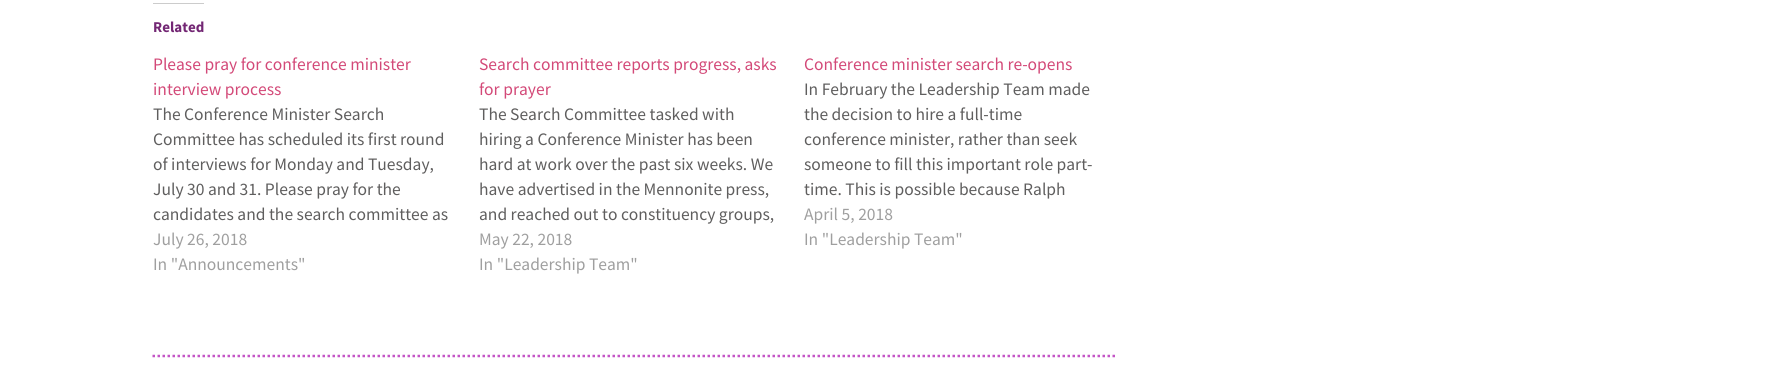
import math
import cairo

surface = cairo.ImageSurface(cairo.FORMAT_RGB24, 1767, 385)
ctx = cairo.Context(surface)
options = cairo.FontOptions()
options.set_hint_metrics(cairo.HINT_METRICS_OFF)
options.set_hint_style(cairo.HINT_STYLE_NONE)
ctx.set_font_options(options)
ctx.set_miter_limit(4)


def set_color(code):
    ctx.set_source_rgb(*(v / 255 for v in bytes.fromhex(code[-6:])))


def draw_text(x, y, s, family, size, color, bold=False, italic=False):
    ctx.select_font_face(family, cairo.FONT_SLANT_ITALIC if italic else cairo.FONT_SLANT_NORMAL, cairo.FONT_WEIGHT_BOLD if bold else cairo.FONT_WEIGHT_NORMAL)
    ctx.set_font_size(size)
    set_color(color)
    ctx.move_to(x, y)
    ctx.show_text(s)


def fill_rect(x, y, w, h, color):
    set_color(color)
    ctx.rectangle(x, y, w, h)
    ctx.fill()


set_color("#ffffff")
ctx.paint()
fill_rect(153, 3, 51, 1, "#cccccc")
draw_text(153, 32, "Related", "Source Sans Pro", 15, "#732774", bold=True)
draw_text(153, 70, "Please pray for conference minister", "Source Sans Pro", 17.5, "#d34978")
draw_text(153, 95, "interview process", "Source Sans Pro", 17.5, "#d34978")
draw_text(153, 120, "The Conference Minister Search", "Source Sans Pro", 17.5, "#5f5e5e")
draw_text(153, 145, "Committee has scheduled its first round", "Source Sans Pro", 17.5, "#5f5e5e")
draw_text(153, 170, "of interviews for Monday and Tuesday,", "Source Sans Pro", 17.5, "#5f5e5e")
draw_text(153, 195, "July 30 and 31. Please pray for the", "Source Sans Pro", 17.5, "#5f5e5e")
draw_text(153, 220, "candidates and the search committee as", "Source Sans Pro", 17.5, "#5f5e5e")
draw_text(153, 245, "July 26, 2018", "Source Sans Pro", 17.5, "#9f9f9f")
draw_text(153, 270, "In \"Announcements\"", "Source Sans Pro", 17.5, "#9f9f9f")
draw_text(479, 70, "Search committee reports progress, asks", "Source Sans Pro", 17.5, "#d34978")
draw_text(479, 95, "for prayer", "Source Sans Pro", 17.5, "#d34978")
draw_text(479, 120, "The Search Committee tasked with", "Source Sans Pro", 17.5, "#5f5e5e")
draw_text(479, 145, "hiring a Conference Minister has been", "Source Sans Pro", 17.5, "#5f5e5e")
draw_text(479, 170, "hard at work over the past six weeks. We", "Source Sans Pro", 17.5, "#5f5e5e")
draw_text(479, 195, "have advertised in the Mennonite press,", "Source Sans Pro", 17.5, "#5f5e5e")
draw_text(479, 220, "and reached out to constituency groups,", "Source Sans Pro", 17.5, "#5f5e5e")
draw_text(479, 245, "May 22, 2018", "Source Sans Pro", 17.5, "#9f9f9f")
draw_text(479, 270, "In \"Leadership Team\"", "Source Sans Pro", 17.5, "#9f9f9f")
draw_text(804, 70, "Conference minister search re-opens", "Source Sans Pro", 17.5, "#d34978")
draw_text(804, 95, "In February the Leadership Team made", "Source Sans Pro", 17.5, "#5f5e5e")
draw_text(804, 120, "the decision to hire a full-time", "Source Sans Pro", 17.5, "#5f5e5e")
draw_text(804, 145, "conference minister, rather than seek", "Source Sans Pro", 17.5, "#5f5e5e")
draw_text(804, 170, "someone to fill this important role part-", "Source Sans Pro", 17.5, "#5f5e5e")
draw_text(804, 195, "time. This is possible because Ralph", "Source Sans Pro", 17.5, "#5f5e5e")
draw_text(804, 220, "April 5, 2018", "Source Sans Pro", 17.5, "#9f9f9f")
draw_text(804, 245, "In \"Leadership Team\"", "Source Sans Pro", 17.5, "#9f9f9f")
ctx.new_path()
ctx.move_to(152.5, 356)
ctx.line_to(1115, 356)
set_color("#c455c6")
ctx.set_line_width(2.5)
ctx.set_dash([2.5, 2.5])
ctx.stroke()
surface.write_to_png("output.png")
